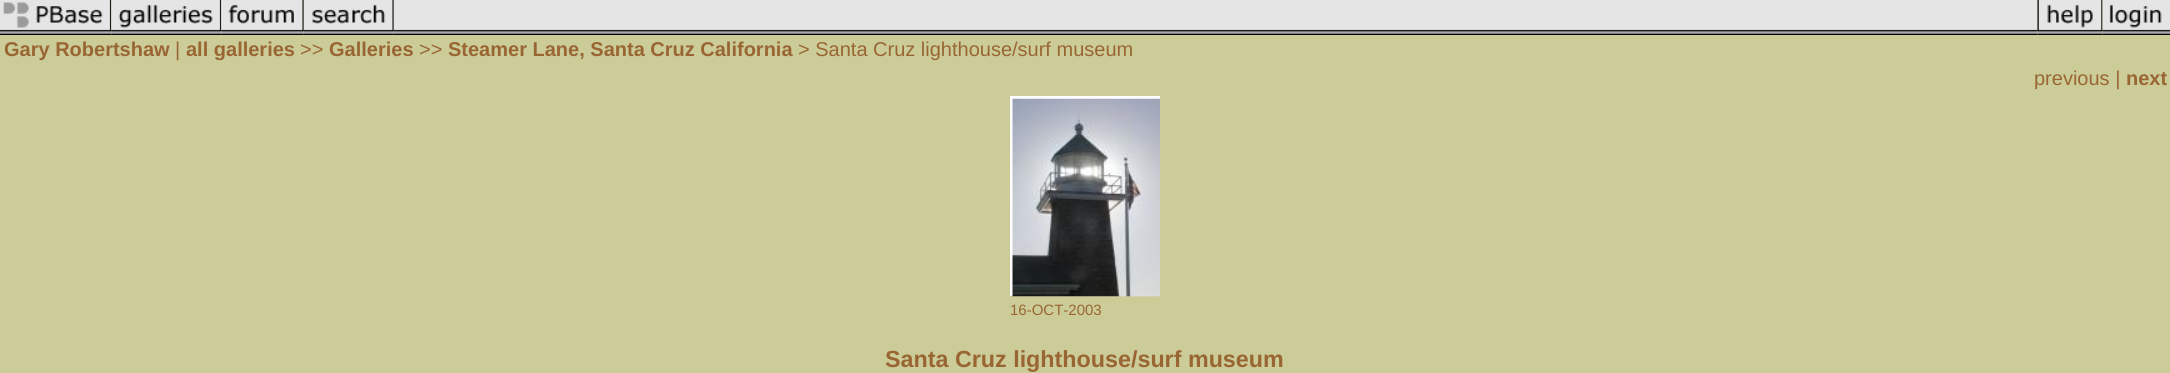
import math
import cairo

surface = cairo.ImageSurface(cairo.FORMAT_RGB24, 2170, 373)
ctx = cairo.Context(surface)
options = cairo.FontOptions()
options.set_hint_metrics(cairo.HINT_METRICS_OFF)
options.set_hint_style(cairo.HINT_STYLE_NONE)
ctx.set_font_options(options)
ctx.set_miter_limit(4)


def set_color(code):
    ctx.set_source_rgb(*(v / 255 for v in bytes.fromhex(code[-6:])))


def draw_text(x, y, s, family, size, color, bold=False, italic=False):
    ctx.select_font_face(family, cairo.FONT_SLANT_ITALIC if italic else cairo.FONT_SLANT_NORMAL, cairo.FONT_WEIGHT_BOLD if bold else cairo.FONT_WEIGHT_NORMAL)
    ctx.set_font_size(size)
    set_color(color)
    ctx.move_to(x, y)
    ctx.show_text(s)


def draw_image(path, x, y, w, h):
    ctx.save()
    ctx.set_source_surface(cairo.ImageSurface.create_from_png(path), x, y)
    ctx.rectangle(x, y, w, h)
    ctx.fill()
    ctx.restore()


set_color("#cccc99")
ctx.paint()
draw_image("assets/img1.png", 0, 0, 112, 35)
draw_image("assets/img2.png", 111, 0, 111, 35)
draw_image("assets/img3.png", 221, 0, 83, 35)
draw_image("assets/img4.png", 303, 0, 91, 35)
draw_image("assets/img5.png", 393, 0, 1645, 35)
draw_image("assets/img6.png", 2037, 0, 66, 35)
draw_image("assets/img7.png", 2102, 0, 68, 35)
draw_text(4, 56, "Gary Robertshaw", "Liberation Sans", 20, "#996633", bold=True)
draw_text(175, 56, "|", "Liberation Sans", 20, "#996633")
draw_text(186, 56, "all galleries", "Liberation Sans", 20, "#996633", bold=True)
draw_text(300, 56, ">>", "Liberation Sans", 20, "#996633")
draw_text(329, 56, "Galleries", "Liberation Sans", 20, "#996633", bold=True)
draw_text(419, 56, ">>", "Liberation Sans", 20, "#996633")
draw_text(448, 56, "Steamer Lane, Santa Cruz California", "Liberation Sans", 20, "#996633", bold=True)
draw_text(798, 56, "> Santa Cruz lighthouse/surf museum", "Liberation Sans", 20, "#996633")
draw_text(2034, 85, "previous |", "Liberation Sans", 20, "#996633")
draw_text(2126, 85, "next", "Liberation Sans", 20, "#996633", bold=True)
ctx.save()
ctx.rectangle(1010, 96, 150, 200)
ctx.clip()
ctx.rectangle(1011.5, 97.5, 152, 202)
set_color("#ffffff")
ctx.set_line_width(3)
ctx.stroke()
ctx.restore()
draw_image("assets/img8.png", 1012, 98, 148, 199)
draw_text(1010, 315, "16-OCT-2003", "Liberation Sans", 15, "#996633")
draw_text(885, 367, "Santa Cruz lighthouse/surf museum", "Liberation Sans", 23.3, "#996633", bold=True)
surface.write_to_png("output.png")
